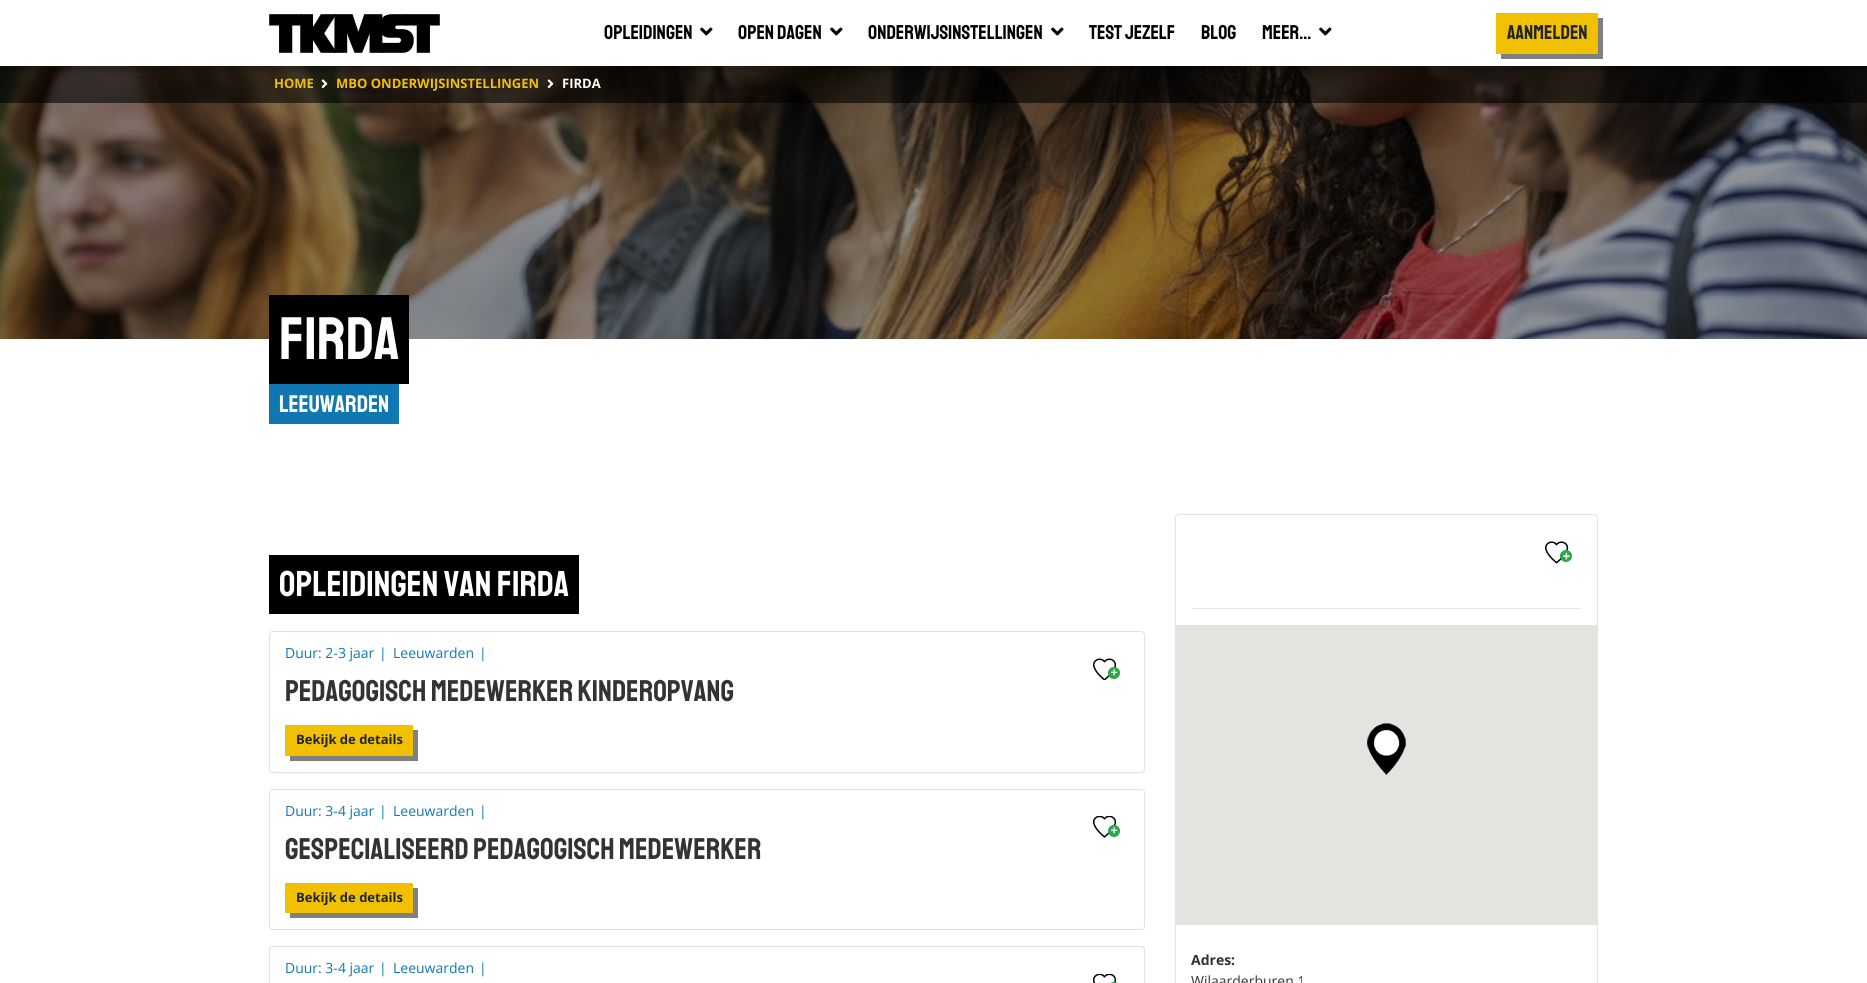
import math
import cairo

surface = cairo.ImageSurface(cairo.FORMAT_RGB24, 1867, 983)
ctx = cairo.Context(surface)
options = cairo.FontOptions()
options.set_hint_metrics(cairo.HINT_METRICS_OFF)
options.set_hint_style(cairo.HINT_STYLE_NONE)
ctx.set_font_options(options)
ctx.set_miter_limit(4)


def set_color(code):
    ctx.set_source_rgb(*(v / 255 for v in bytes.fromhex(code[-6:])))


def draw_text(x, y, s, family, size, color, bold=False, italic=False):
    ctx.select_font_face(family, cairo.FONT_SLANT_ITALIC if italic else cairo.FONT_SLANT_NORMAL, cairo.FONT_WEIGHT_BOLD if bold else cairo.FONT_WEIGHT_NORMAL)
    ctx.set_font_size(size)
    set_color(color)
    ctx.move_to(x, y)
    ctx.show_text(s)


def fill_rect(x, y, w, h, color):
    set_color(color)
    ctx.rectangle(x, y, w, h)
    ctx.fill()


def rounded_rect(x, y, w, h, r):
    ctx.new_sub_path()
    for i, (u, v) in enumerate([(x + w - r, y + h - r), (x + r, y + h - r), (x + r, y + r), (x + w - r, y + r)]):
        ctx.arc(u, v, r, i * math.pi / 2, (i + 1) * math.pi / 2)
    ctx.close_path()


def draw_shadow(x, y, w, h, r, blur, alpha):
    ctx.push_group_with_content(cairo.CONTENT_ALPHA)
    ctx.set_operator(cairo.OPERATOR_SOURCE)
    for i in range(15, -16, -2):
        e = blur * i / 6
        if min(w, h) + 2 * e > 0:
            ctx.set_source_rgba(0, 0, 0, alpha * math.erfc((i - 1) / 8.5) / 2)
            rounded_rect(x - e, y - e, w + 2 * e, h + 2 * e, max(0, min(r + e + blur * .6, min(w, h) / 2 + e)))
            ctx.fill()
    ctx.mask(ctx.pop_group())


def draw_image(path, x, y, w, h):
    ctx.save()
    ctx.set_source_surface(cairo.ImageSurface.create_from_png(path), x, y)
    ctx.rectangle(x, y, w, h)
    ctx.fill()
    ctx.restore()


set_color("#ffffff")
ctx.paint()
draw_image("assets/img5.png", 0, 66, 1867, 273)
ctx.save()
ctx.rectangle(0, 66, 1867, 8)
ctx.clip()
set_color("#000000")
draw_shadow(0, 5, 1867, 66, 0, 2.5, 0.25)
ctx.restore()
draw_image("assets/img1.png", 269, 14, 171, 39)
draw_text(604, 39, "Opleidingen", "Staatliches", 20, "#000000")
draw_image("assets/img2.png", 700, 27, 13, 9)
draw_text(738, 39, "Open dagen", "Staatliches", 20, "#000000")
draw_image("assets/img2.png", 830, 27, 13, 9)
draw_text(868, 39, "Onderwijsinstellingen", "Staatliches", 20, "#000000")
draw_image("assets/img2.png", 1051, 27, 13, 9)
draw_text(1089, 39, "Test jezelf", "Staatliches", 20, "#000000")
draw_text(1201, 39, "Blog", "Staatliches", 20, "#000000")
draw_text(1262, 39, "Meer...", "Staatliches", 20, "#000000")
draw_image("assets/img2.png", 1319, 27, 13, 9)
set_color("#808080")
ctx.new_path()
ctx.move_to(1501, 54)
ctx.line_to(1501, 59)
ctx.line_to(1603, 59)
ctx.line_to(1603, 18)
ctx.line_to(1598, 18)
ctx.line_to(1598, 54)
ctx.close_path()
ctx.fill()
fill_rect(1496, 13, 102, 41, "#f1c100")
draw_text(1507, 39, "Aanmelden", "Staatliches", 20, "#212529")
ctx.set_source_rgba(0, 0, 0, 0.6)
ctx.rectangle(0, 66, 1867, 37)
ctx.fill()
draw_text(274, 88, "HOME", "Open Sans", 13, "#f1c100", bold=True)
draw_image("assets/img3.png", 321, 79, 7, 10)
draw_text(336, 88, "MBO ONDERWIJSINSTELLINGEN", "Open Sans", 13, "#f1c100", bold=True)
draw_image("assets/img4.png", 547, 79, 7, 10)
draw_text(562, 88, "FIRDA", "Open Sans", 13, "#ffffff", bold=True)
fill_rect(269, 295, 140, 89, "#000000")
draw_text(279, 359, "Firda", "Staatliches", 60, "#ffffff")
fill_rect(269, 384, 130, 40, "#0f78b3")
draw_text(279, 412, "Leeuwarden", "Staatliches", 24, "#ffffff")
fill_rect(269, 555, 310, 59, "#000000")
draw_text(279, 596, "Opleidingen van Firda", "Staatliches", 36, "#ffffff")
fill_rect(269, 631, 876, 142, "#f8f9fa")
set_color("#ffffff")
rounded_rect(269.5, 631.5, 875, 141, 3.5)
ctx.fill_preserve()
set_color("#dee2e6")
ctx.set_line_width(1)
ctx.stroke()
draw_text(285, 658, "Duur: 2-3 jaar", "Open Sans", 14, "#0f78b3")
draw_text(379, 658, "|", "Open Sans", 14, "#0f78b3")
draw_text(393, 658, "Leeuwarden", "Open Sans", 14, "#0f78b3")
draw_text(479, 658, "|", "Open Sans", 14, "#0f78b3")
draw_text(285, 701, "Pedagogisch medewerker kinderopvang", "Staatliches", 30, "#333333")
draw_image("assets/img6.png", 1093, 658, 23, 22)
set_color("#28a745")
ctx.arc(1114, 673, 6, 0, 2 * math.pi)
ctx.fill()
draw_image("assets/img7.png", 1111, 669, 7, 7)
set_color("#808080")
ctx.new_path()
ctx.move_to(290, 756)
ctx.line_to(290, 761)
ctx.line_to(418, 761)
ctx.line_to(418, 730)
ctx.line_to(413, 730)
ctx.line_to(413, 756)
ctx.close_path()
ctx.fill()
fill_rect(285, 725, 128, 31, "#f1c100")
draw_text(296, 744, "Bekijk de details", "Open Sans", 13, "#212529", bold=True)
fill_rect(269, 789, 876, 141, "#f8f9fa")
set_color("#ffffff")
rounded_rect(269.5, 789.5, 875, 140, 3.5)
ctx.fill_preserve()
set_color("#dee2e6")
ctx.stroke()
draw_text(285, 816, "Duur: 3-4 jaar", "Open Sans", 14, "#0f78b3")
draw_text(379, 816, "|", "Open Sans", 14, "#0f78b3")
draw_text(393, 816, "Leeuwarden", "Open Sans", 14, "#0f78b3")
draw_text(479, 816, "|", "Open Sans", 14, "#0f78b3")
draw_text(285, 859, "Gespecialiseerd pedagogisch medewerker", "Staatliches", 30, "#333333")
draw_image("assets/img8.png", 1093, 816, 23, 22)
set_color("#28a745")
ctx.arc(1114, 831, 6, 0, 2 * math.pi)
ctx.fill()
draw_image("assets/img7.png", 1111, 827, 7, 7)
set_color("#808080")
ctx.new_path()
ctx.move_to(290, 913)
ctx.line_to(290, 918)
ctx.line_to(418, 918)
ctx.line_to(418, 888)
ctx.line_to(413, 888)
ctx.line_to(413, 913)
ctx.close_path()
ctx.fill()
fill_rect(285, 883, 128, 30, "#f1c100")
draw_text(296, 902, "Bekijk de details", "Open Sans", 13, "#212529", bold=True)
fill_rect(269, 946, 876, 4, "#f8f9fa")
set_color("#ffffff")
rounded_rect(269.5, 946.5, 875, 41, 3.5)
ctx.fill_preserve()
set_color("#dee2e6")
ctx.stroke()
draw_text(285, 973, "Duur: 3-4 jaar", "Open Sans", 14, "#0f78b3")
draw_text(379, 973, "|", "Open Sans", 14, "#0f78b3")
draw_text(393, 973, "Leeuwarden", "Open Sans", 14, "#0f78b3")
draw_text(479, 973, "|", "Open Sans", 14, "#0f78b3")
draw_image("assets/img9.png", 1093, 974, 23, 9)
set_color("#28a745")
rounded_rect(1108, 982, 12, 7, 6)
ctx.fill()
rounded_rect(1175.5, 514.5, 422, 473, 3.5)
set_color("#dee2e6")
ctx.stroke()
draw_image("assets/img10.png", 1545, 541, 24, 23)
set_color("#28a745")
ctx.arc(1566, 556, 6, 0, 2 * math.pi)
ctx.fill()
draw_image("assets/img11.png", 1563, 552, 7, 8)
fill_rect(1192, 608, 389, 1, "#e6e6e6")
fill_rect(1176, 625, 421, 300, "#e5e3df")
draw_image("assets/img12.png", 1367, 723, 39, 52)
draw_text(1191, 965, "Adres:", "Open Sans", 14, "#333333", bold=True)
draw_text(1191, 986, "Wilaarderburen 1", "Open Sans", 14, "#333333")
surface.write_to_png("output.png")
